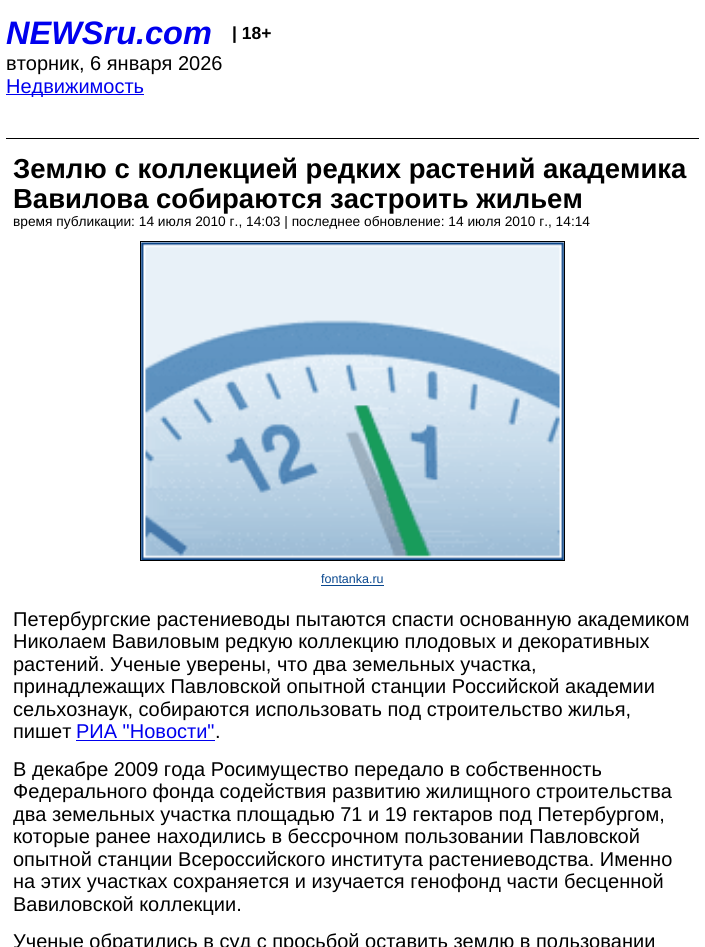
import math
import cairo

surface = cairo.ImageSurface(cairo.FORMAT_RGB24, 705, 947)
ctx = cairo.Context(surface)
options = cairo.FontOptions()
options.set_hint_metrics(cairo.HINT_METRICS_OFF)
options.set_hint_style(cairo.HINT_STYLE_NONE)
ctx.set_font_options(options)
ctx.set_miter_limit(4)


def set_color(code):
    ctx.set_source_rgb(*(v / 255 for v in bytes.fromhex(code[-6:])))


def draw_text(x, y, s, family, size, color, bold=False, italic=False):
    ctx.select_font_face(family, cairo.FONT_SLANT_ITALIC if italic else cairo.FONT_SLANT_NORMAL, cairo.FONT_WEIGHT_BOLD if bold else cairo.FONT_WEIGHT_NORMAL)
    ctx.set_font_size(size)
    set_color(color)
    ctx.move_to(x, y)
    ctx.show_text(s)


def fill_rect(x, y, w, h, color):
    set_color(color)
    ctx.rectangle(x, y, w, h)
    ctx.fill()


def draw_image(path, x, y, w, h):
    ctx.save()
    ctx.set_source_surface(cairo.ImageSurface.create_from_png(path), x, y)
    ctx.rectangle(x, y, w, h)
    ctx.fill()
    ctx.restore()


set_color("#ffffff")
ctx.paint()
fill_rect(6, 138, 693, 1, "#000000")
draw_text(6, 44, "NEWSru.com", "Liberation Sans", 32.5, "#0000ee", bold=True, italic=True)
draw_text(232, 39, "| 18+", "Liberation Sans", 17.5, "#000000", bold=True)
draw_text(6, 70, "вторник, 6 января 2026", "Liberation Sans", 20, "#000000")
fill_rect(6, 94, 138, 1, "#0000ee")
draw_text(6, 93, "Недвижимость", "Liberation Sans", 20, "#0000ee")
draw_text(13, 178, "Землю с коллекцией редких растений академика", "Liberation Sans", 27.5, "#000000", bold=True)
draw_text(13, 208, "Вавилова собираются застроить жильем", "Liberation Sans", 27.5, "#000000", bold=True)
draw_text(13, 226, "время публикации: 14 июля 2010 г., 14:03 | последнее обновление: 14 июля 2010 г., 14:14", "Liberation Sans", 13.75, "#000000")
ctx.rectangle(140.5, 241.5, 424, 319)
ctx.set_line_width(1)
ctx.stroke()
draw_image("assets/img1.png", 141, 242, 423, 318)
draw_text(321, 583, "fontanka.ru", "Liberation Sans", 12.5, "#09488f")
fill_rect(321, 585, 63, 1, "#09488f")
draw_text(13, 626, "Петербургские растениеводы пытаются спасти основанную академиком", "Liberation Sans", 20, "#000000")
draw_text(13, 648, "Николаем Вавиловым редкую коллекцию плодовых и декоративных", "Liberation Sans", 20, "#000000")
draw_text(13, 671, "растений. Ученые уверены, что два земельных участка,", "Liberation Sans", 20, "#000000")
draw_text(13, 693, "принадлежащих Павловской опытной станции Российской академии", "Liberation Sans", 20, "#000000")
draw_text(13, 716, "сельхознаук, собираются использовать под строительство жилья,", "Liberation Sans", 20, "#000000")
draw_text(13, 738, "пишет", "Liberation Sans", 20, "#000000")
draw_text(76, 738, "РИА \"Новости\"", "Liberation Sans", 20, "#0000ee")
fill_rect(76, 740, 139, 1, "#0000ee")
draw_text(215, 738, ".", "Liberation Sans", 20, "#000000")
draw_text(13, 776, "В декабре 2009 года Росимущество передало в собственность", "Liberation Sans", 20, "#000000")
draw_text(13, 798, "Федерального фонда содействия развитию жилищного строительства", "Liberation Sans", 20, "#000000")
draw_text(13, 821, "два земельных участка площадью 71 и 19 гектаров под Петербургом,", "Liberation Sans", 20, "#000000")
draw_text(13, 843, "которые ранее находились в бессрочном пользовании Павловской", "Liberation Sans", 20, "#000000")
draw_text(13, 866, "опытной станции Всероссийского института растениеводства. Именно", "Liberation Sans", 20, "#000000")
draw_text(13, 888, "на этих участках сохраняется и изучается генофонд части бесценной", "Liberation Sans", 20, "#000000")
draw_text(13, 911, "Вавиловской коллекции.", "Liberation Sans", 20, "#000000")
draw_text(13, 948, "Ученые обратились в суд с просьбой оставить землю в пользовании", "Liberation Sans", 20, "#000000")
surface.write_to_png("output.png")
